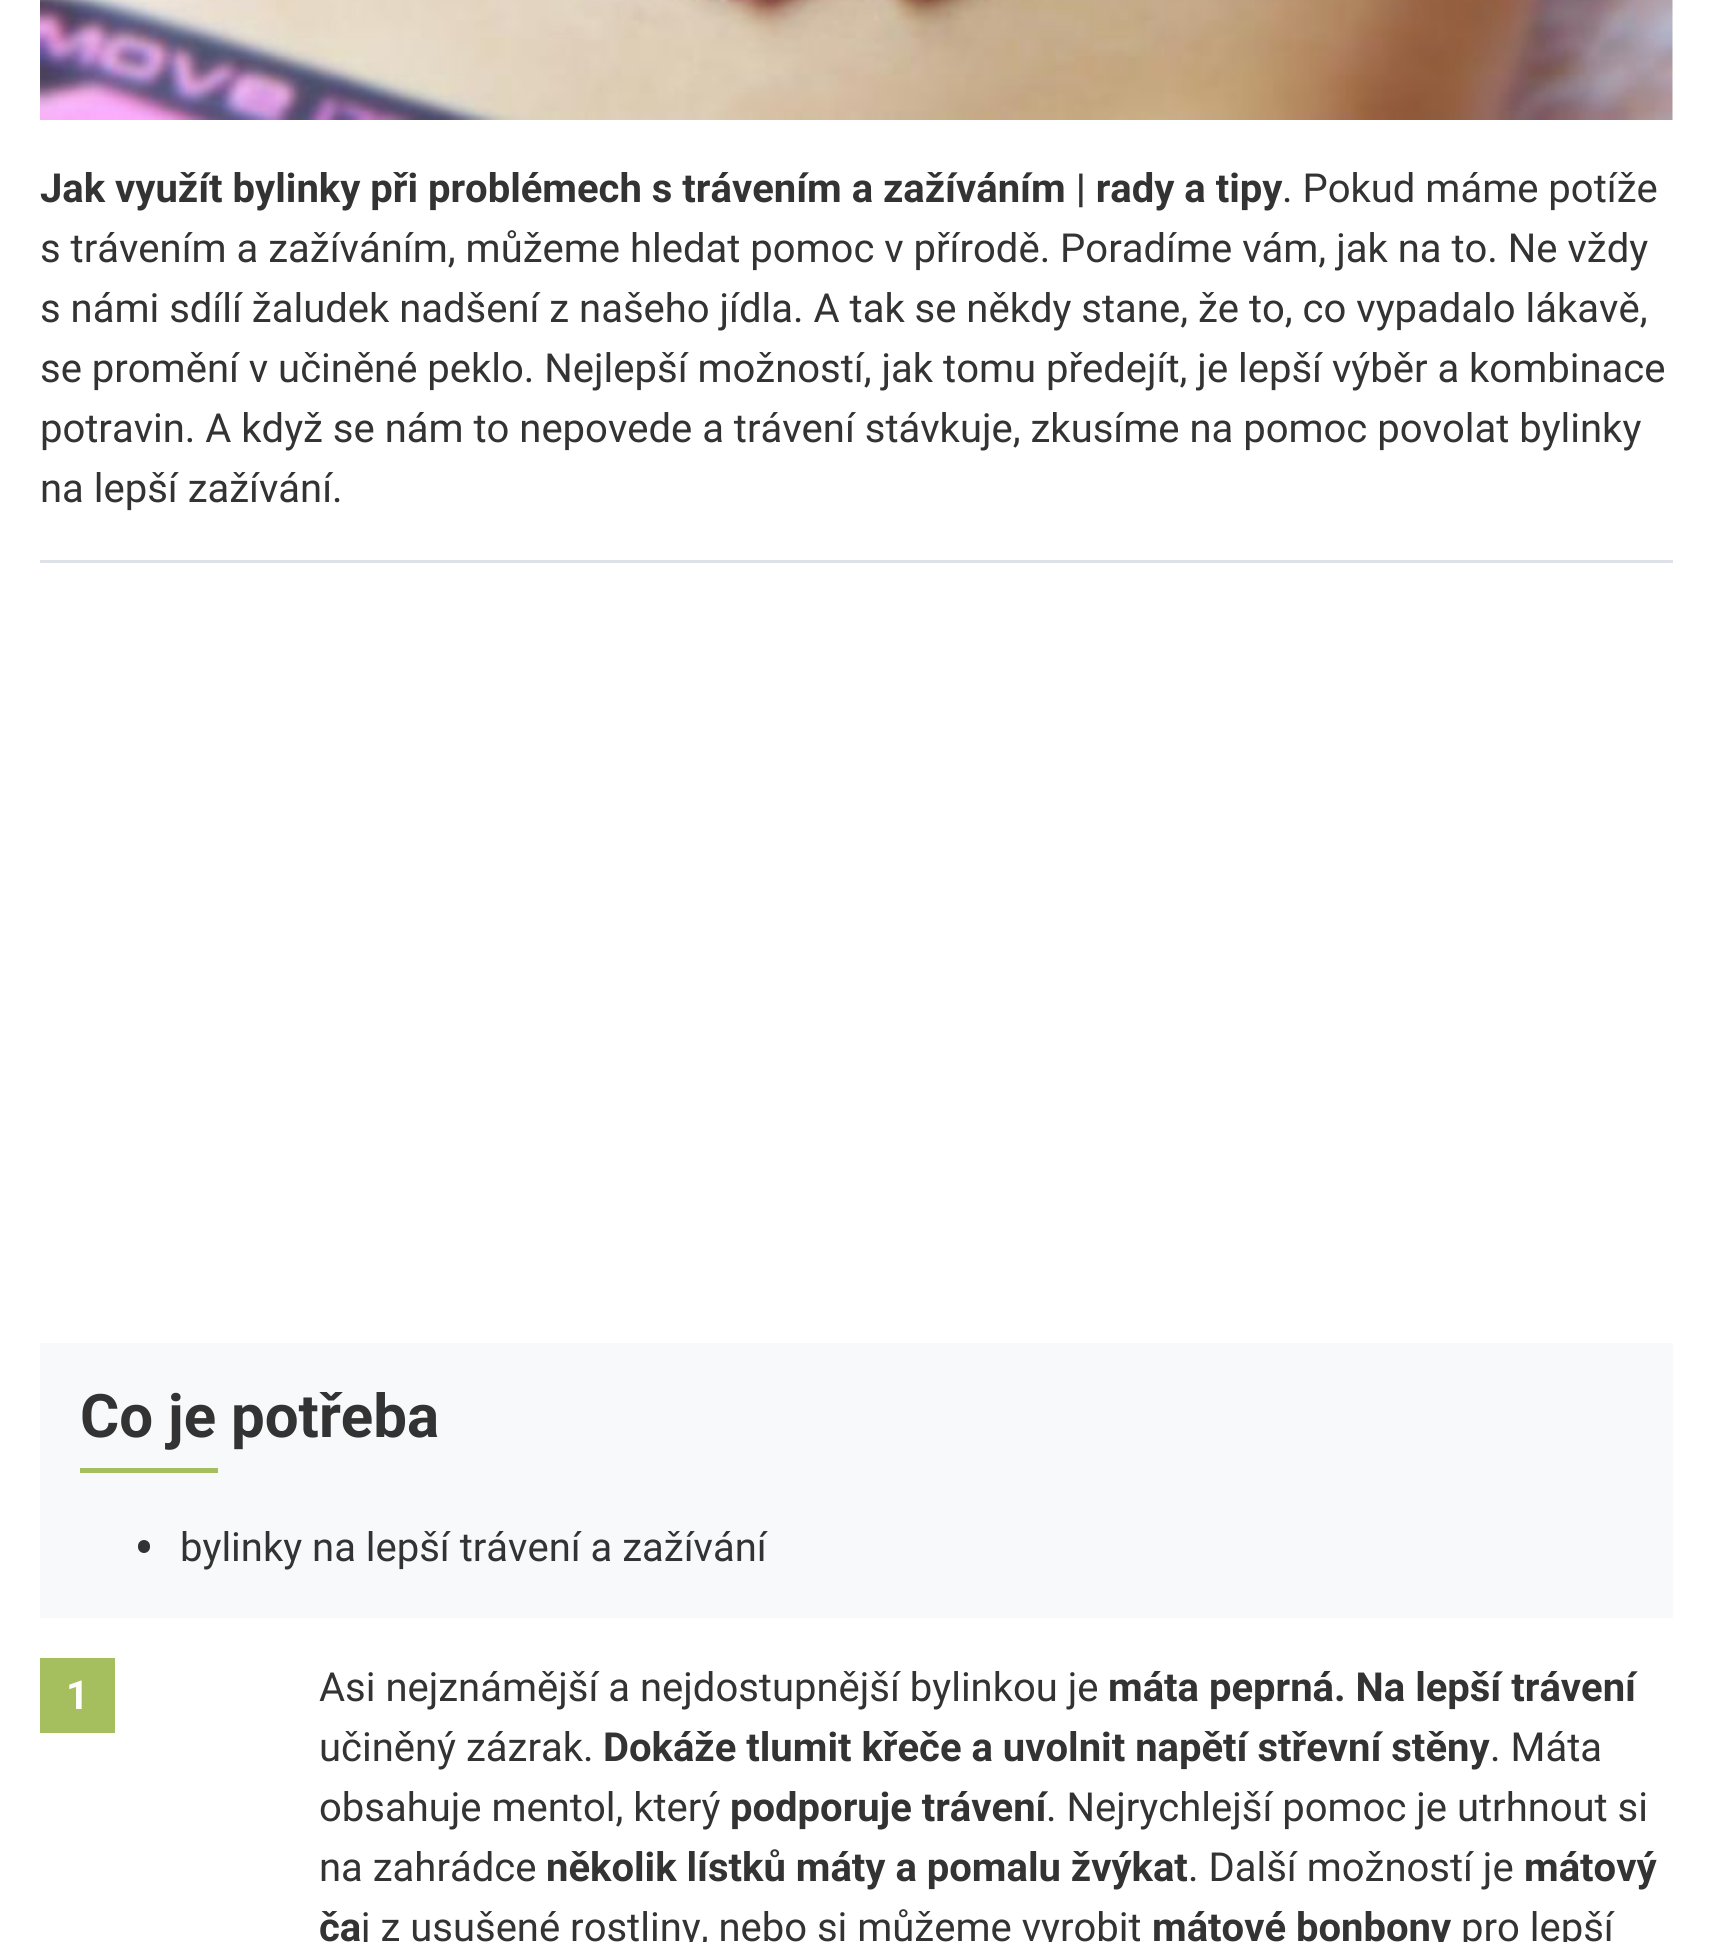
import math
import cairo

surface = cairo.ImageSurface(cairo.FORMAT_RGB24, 1712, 1942)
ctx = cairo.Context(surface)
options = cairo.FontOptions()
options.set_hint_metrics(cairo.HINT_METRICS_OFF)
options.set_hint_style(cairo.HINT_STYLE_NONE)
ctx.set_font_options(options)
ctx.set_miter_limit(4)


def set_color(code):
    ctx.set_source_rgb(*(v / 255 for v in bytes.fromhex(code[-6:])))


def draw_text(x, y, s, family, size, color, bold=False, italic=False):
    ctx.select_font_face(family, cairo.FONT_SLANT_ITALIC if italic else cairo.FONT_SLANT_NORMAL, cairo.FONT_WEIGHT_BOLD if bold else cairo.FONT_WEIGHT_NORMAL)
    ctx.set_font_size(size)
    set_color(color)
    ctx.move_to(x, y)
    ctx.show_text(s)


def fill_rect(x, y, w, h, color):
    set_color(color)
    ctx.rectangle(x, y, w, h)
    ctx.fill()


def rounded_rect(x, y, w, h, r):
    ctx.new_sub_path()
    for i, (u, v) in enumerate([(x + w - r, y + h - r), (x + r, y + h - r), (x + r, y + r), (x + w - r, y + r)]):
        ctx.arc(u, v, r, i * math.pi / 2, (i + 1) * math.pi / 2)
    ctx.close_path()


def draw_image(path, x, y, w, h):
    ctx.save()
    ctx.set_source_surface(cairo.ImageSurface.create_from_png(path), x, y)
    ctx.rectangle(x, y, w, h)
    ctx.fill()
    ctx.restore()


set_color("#ffffff")
ctx.paint()
fill_rect(40, 560, 1633, 3, "#dee2e6")
draw_image("assets/img1.png", 40, 0, 1633, 120)
draw_text(40, 202, "Jak využít bylinky při problémech s trávením a zažíváním | rady a tipy", "Roboto", 40, "#333333", bold=True)
draw_text(1282, 202, ". Pokud máme potíže", "Roboto", 40, "#333333")
draw_text(40, 262, "s trávením a zažíváním, můžeme hledat pomoc v přírodě. Poradíme vám, jak na to. Ne vždy", "Roboto", 40, "#333333")
draw_text(40, 322, "s námi sdílí žaludek nadšení z našeho jídla. A tak se někdy stane, že to, co vypadalo lákavě,", "Roboto", 40, "#333333")
draw_text(40, 382, "se promění v učiněné peklo. Nejlepší možností, jak tomu předejít, je lepší výběr a kombinace", "Roboto", 40, "#333333")
draw_text(40, 442, "potravin. A když se nám to nepovede a trávení stávkuje, zkusíme na pomoc povolat bylinky", "Roboto", 40, "#333333")
draw_text(40, 502, "na lepší zažívání.", "Roboto", 40, "#333333")
fill_rect(40, 1343, 1633, 275, "#f8f9fa")
draw_text(80, 1437, "Co je potřeba", "Roboto", 60, "#333333", bold=True)
fill_rect(80, 1468, 138, 5, "#a5bf5f")
set_color("#333333")
rounded_rect(138, 1540, 12, 13, 6)
ctx.fill()
draw_text(180, 1561, "bylinky na lepší trávení a zažívání", "Roboto", 40, "#333333")
fill_rect(40, 1658, 75, 75, "#a5bf5f")
draw_text(66, 1709, "1", "Roboto", 40, "#ffffff", bold=True)
draw_text(319, 1701, "Asi nejznámější a nejdostupnější bylinkou je", "Roboto", 40, "#333333")
draw_text(1108, 1701, "máta peprná. Na lepší trávení", "Roboto", 40, "#333333", bold=True)
draw_text(319, 1761, "učiněný zázrak.", "Roboto", 40, "#333333")
draw_text(603, 1761, "Dokáže tlumit křeče a uvolnit napětí střevní stěny", "Roboto", 40, "#333333", bold=True)
draw_text(1490, 1761, ". Máta", "Roboto", 40, "#333333")
draw_text(319, 1821, "obsahuje mentol, který", "Roboto", 40, "#333333")
draw_text(730, 1821, "podporuje trávení", "Roboto", 40, "#333333", bold=True)
draw_text(1046, 1821, ". Nejrychlejší pomoc je utrhnout si", "Roboto", 40, "#333333")
draw_text(319, 1881, "na zahrádce", "Roboto", 40, "#333333")
draw_text(546, 1881, "několik lístků máty a pomalu žvýkat", "Roboto", 40, "#333333", bold=True)
draw_text(1188, 1881, ". Další možností je", "Roboto", 40, "#333333")
draw_text(1524, 1881, "mátový", "Roboto", 40, "#333333", bold=True)
draw_text(319, 1941, "ča", "Roboto", 40, "#333333", bold=True)
draw_text(361, 1941, "j z usušené rostliny, nebo si můžeme vyrobit", "Roboto", 40, "#333333")
draw_text(1152, 1941, "mátové bonbony", "Roboto", 40, "#333333", bold=True)
draw_text(1461, 1941, "pro lepší", "Roboto", 40, "#333333")
surface.write_to_png("output.png")
